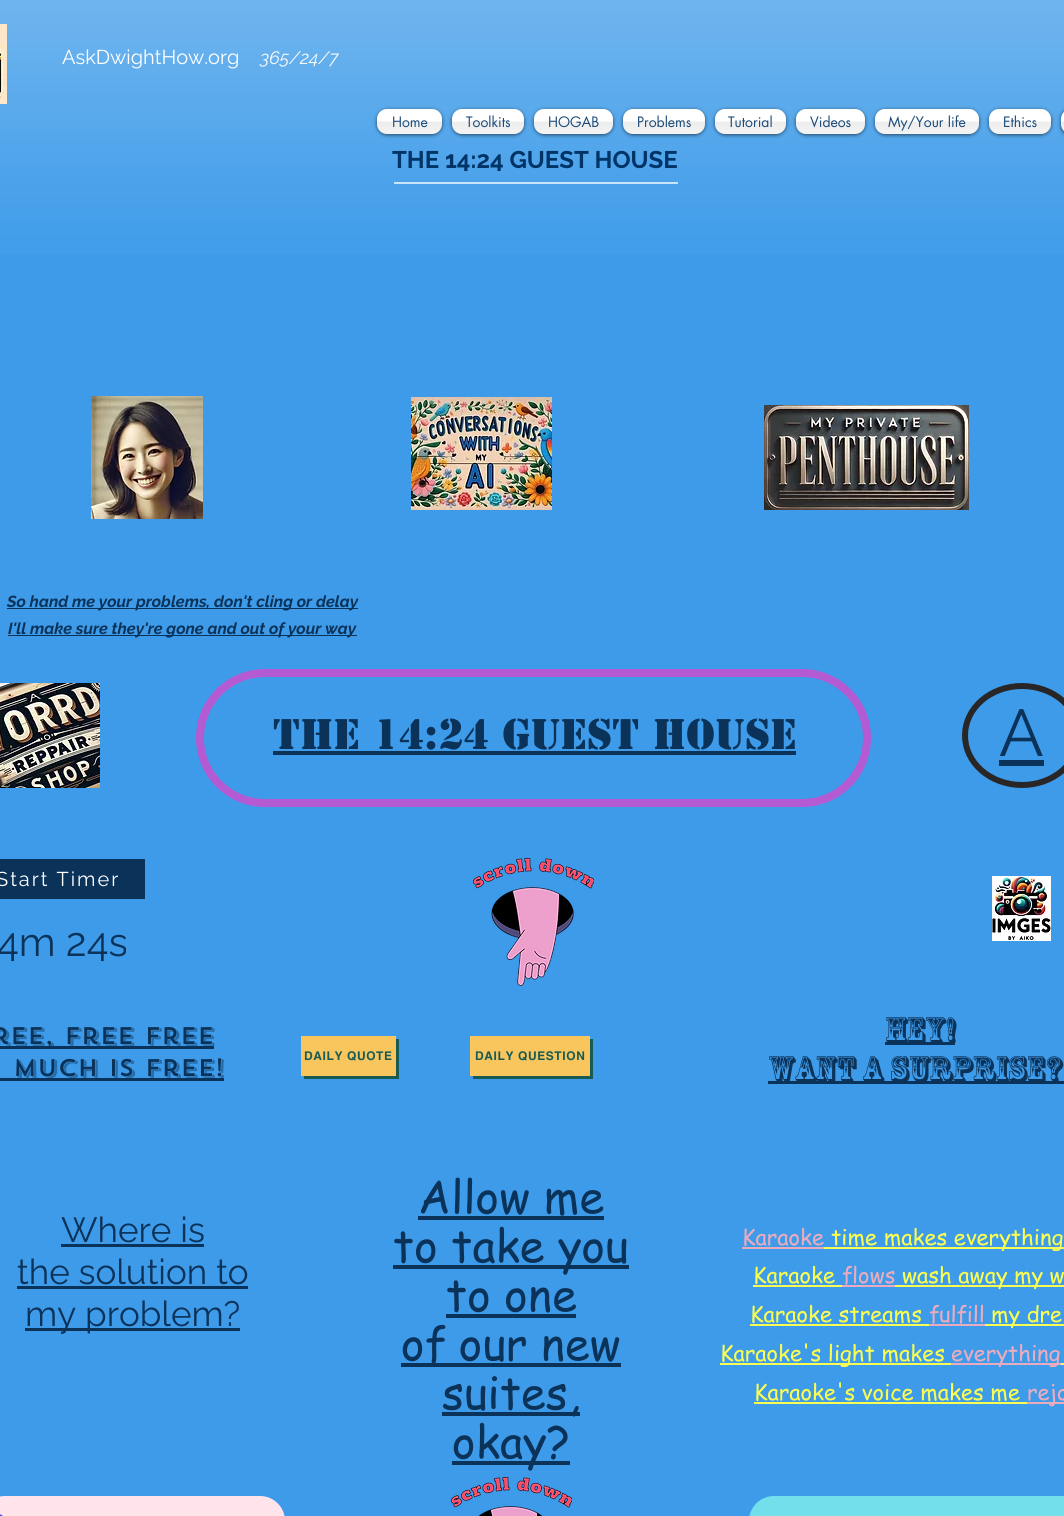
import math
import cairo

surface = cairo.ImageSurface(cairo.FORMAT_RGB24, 1064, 1516)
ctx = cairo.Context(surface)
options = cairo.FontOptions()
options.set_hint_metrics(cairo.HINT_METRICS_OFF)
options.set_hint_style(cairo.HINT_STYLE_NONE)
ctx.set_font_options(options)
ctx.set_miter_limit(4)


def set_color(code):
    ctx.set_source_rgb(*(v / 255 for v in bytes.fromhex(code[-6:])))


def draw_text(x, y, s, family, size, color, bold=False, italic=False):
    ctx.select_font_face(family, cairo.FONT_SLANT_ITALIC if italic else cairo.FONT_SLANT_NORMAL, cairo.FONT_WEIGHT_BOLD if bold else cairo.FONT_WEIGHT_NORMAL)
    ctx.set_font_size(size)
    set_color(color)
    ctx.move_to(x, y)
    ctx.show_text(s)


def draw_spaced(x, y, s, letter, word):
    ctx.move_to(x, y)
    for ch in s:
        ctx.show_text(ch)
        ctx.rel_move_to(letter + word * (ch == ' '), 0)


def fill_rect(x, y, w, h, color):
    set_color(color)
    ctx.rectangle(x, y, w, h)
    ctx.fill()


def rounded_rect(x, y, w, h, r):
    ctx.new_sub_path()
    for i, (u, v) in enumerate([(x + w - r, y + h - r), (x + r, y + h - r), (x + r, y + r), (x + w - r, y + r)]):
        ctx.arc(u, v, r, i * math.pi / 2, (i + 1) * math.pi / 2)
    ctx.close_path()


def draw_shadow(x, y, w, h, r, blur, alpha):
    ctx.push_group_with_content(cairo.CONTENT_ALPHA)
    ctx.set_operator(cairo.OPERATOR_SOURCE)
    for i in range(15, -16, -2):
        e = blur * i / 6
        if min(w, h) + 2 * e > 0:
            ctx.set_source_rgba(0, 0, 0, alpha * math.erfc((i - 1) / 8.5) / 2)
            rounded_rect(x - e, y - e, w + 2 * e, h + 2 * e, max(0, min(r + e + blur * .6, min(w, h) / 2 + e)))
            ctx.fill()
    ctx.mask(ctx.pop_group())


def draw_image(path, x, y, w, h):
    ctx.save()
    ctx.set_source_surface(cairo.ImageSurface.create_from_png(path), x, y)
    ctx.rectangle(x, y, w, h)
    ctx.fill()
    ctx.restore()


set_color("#3d9be9")
ctx.paint()
draw_image("assets/img1.png", 0, 0, 1064, 254)
draw_image("assets/img2.png", 0, 24, 7, 80)
draw_text(62, 64, "AskDwightHow.org", "Raleway", 20, "#ffffff")
draw_text(260, 64, "365/24/7", "Raleway", 18, "#f9f9f9", italic=True)
set_color("#000000")
draw_shadow(377, 110, 65, 25, 10, 2, 0.6)
set_color("#ffffff")
rounded_rect(377, 109, 65, 25, 10)
ctx.fill()
draw_image("assets/img3.png", 377, 109, 65, 25)
draw_text(392, 127, "Home", "futura", 14, "#1b4b7a")
set_color("#000000")
draw_shadow(452, 110, 72, 25, 10, 2, 0.6)
set_color("#ffffff")
rounded_rect(452, 109, 72, 25, 10)
ctx.fill()
draw_image("assets/img4.png", 452, 109, 72, 25)
draw_text(466, 127, "Toolkits", "futura", 14, "#1b4b7a")
set_color("#000000")
draw_shadow(534, 110, 79, 25, 10, 2, 0.6)
set_color("#ffffff")
rounded_rect(534, 109, 79, 25, 10)
ctx.fill()
draw_image("assets/img5.png", 534, 109, 79, 25)
draw_text(548, 127, "HOGAB", "futura", 14, "#1b4b7a")
set_color("#000000")
draw_shadow(623, 110, 82, 25, 10, 2, 0.6)
set_color("#ffffff")
rounded_rect(623, 109, 82, 25, 10)
ctx.fill()
draw_image("assets/img6.png", 623, 109, 82, 25)
draw_text(637, 127, "Problems", "futura", 14, "#1b4b7a")
set_color("#000000")
draw_shadow(715, 110, 71, 25, 10, 2, 0.6)
set_color("#ffffff")
rounded_rect(715, 109, 71, 25, 10)
ctx.fill()
draw_image("assets/img7.png", 715, 109, 71, 25)
draw_text(728, 127, "Tutorial", "futura", 14, "#1b4b7a")
set_color("#000000")
draw_shadow(796, 110, 69, 25, 10, 2, 0.6)
set_color("#ffffff")
rounded_rect(796, 109, 69, 25, 10)
ctx.fill()
draw_image("assets/img8.png", 796, 109, 69, 25)
draw_text(810, 127, "Videos", "futura", 14, "#1b4b7a")
set_color("#000000")
draw_shadow(875, 110, 104, 25, 10, 2, 0.6)
set_color("#ffffff")
rounded_rect(875, 109, 104, 25, 10)
ctx.fill()
draw_image("assets/img9.png", 875, 109, 104, 25)
draw_text(888, 127, "My/Your life", "futura", 14, "#1b4b7a")
set_color("#000000")
draw_shadow(989, 110, 62, 25, 10, 2, 0.6)
set_color("#ffffff")
rounded_rect(989, 109, 62, 25, 10)
ctx.fill()
draw_image("assets/img10.png", 989, 109, 62, 25)
draw_text(1003, 127, "Ethics", "futura", 14, "#1b4b7a")
set_color("#000000")
draw_shadow(1061, 110, 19, 25, 10, 2, 0.6)
set_color("#ffffff")
rounded_rect(1061, 109, 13, 25, 10)
ctx.fill()
draw_image("assets/img11.png", 1061, 112, 3, 18)
draw_text(392, 168, "THE 14:24 GUEST HOUSE", "Raleway", 24, "#003366", bold=True)
fill_rect(394, 182, 284, 2, "#c9e3f9")
draw_image("assets/img12.png", 91, 396, 112, 123)
draw_image("assets/img13.png", 411, 397, 141, 113)
draw_image("assets/img14.png", 764, 405, 205, 105)
fill_rect(7, 608, 351, 1, "#0b3259")
draw_text(7, 607, "So hand me your problems, don't cling or delay", "Raleway", 16, "#0b3259", bold=True, italic=True)
fill_rect(8, 635, 349, 1, "#0b3259")
draw_text(8, 634, "I'll make sure they're gone and out of your way", "Raleway", 16, "#0b3259", bold=True, italic=True)
draw_image("assets/img15.png", 0, 683, 100, 105)
rounded_rect(200, 673, 667, 130, 65)
set_color("#b45ad3")
ctx.set_line_width(8)
ctx.stroke()
ctx.new_path()
ctx.move_to(1022, 686)
ctx.curve_to(1053.5, 686, 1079, 708, 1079, 735.5)
ctx.curve_to(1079, 763, 1053.5, 785, 1022, 785)
ctx.curve_to(990.5, 785, 965, 763, 965, 735.5)
ctx.curve_to(965, 708, 990.5, 686, 1022, 686)
ctx.close_path()
set_color("#282626")
ctx.set_line_width(6)
ctx.stroke()
draw_text(999, 756, "A", "Raleway", 66, "#0b3259")
fill_rect(999, 760, 45, 6, "#0b3259")
draw_text(273, 749, "The 14:24 Guest House", "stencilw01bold", 40, "#0b3259", bold=True)
fill_rect(273, 751, 523, 4, "#0b3259")
fill_rect(0, 859, 145, 40, "#0b3259")
ctx.select_font_face("Raleway")
ctx.set_font_size(20)
set_color("#ffffff")
draw_spaced(-4, 886, "Start Timer", 2, 0)
draw_image("assets/img16.png", 473, 858, 121, 128)
draw_image("assets/img17.png", 992, 876, 59, 65)
draw_text(-3, 956, "4m 24s", "Raleway", 40, "#0b3259")
fill_rect(0, 1046, 214, 3, "#0b3259")
draw_text(-9, 1044, "ree, free free", "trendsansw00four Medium", 24, "#0b3259")
fill_rect(0, 1078, 224, 3, "#0b3259")
draw_text(13, 1076, "much is free!", "trendsansw00four Medium", 24, "#0b3259")
set_color("#195b52")
ctx.new_path()
ctx.move_to(304, 1076)
ctx.line_to(304, 1079)
ctx.line_to(399, 1079)
ctx.line_to(399, 1039)
ctx.line_to(396, 1039)
ctx.line_to(396, 1076)
ctx.close_path()
ctx.fill()
fill_rect(301, 1036, 95, 40, "#f9c65d")
ctx.select_font_face("helvetica", cairo.FONT_SLANT_NORMAL, cairo.FONT_WEIGHT_BOLD)
ctx.set_font_size(12)
set_color("#195b52")
draw_spaced(304, 1060, "DAILY QUOTE", 0.6, 0)
ctx.new_path()
ctx.move_to(473, 1076)
ctx.line_to(473, 1079)
ctx.line_to(593, 1079)
ctx.line_to(593, 1039)
ctx.line_to(590, 1039)
ctx.line_to(590, 1076)
ctx.close_path()
ctx.fill()
fill_rect(470, 1036, 120, 40, "#f9c65d")
set_color("#195b52")
draw_spaced(475, 1060, "DAILY QUESTION", 0.6, 0)
fill_rect(885, 1042, 70, 3, "#0b3259")
draw_text(885, 1040, "Hey!", "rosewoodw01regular", 35, "#0b3259")
fill_rect(768, 1081, 296, 3, "#0b3259")
draw_text(768, 1079, "Want a surprise?", "rosewoodw01regular", 35, "#0b3259")
draw_text(61, 1242, "Where is", "Raleway", 35, "#0b3259")
fill_rect(61, 1244, 143, 3, "#0b3259")
draw_text(17, 1284, "the solution to", "Raleway", 35, "#0b3259")
fill_rect(17, 1286, 231, 3, "#0b3259")
fill_rect(25, 1328, 215, 3, "#0b3259")
draw_text(25, 1326, "my problem?", "Raleway", 35, "#0b3259")
draw_text(418, 1213, "Allow me", "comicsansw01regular", 45, "#0b3259")
fill_rect(418, 1216, 186, 4, "#0b3259")
fill_rect(393, 1265, 236, 4, "#0b3259")
draw_text(393, 1262, "to take you", "comicsansw01regular", 45, "#0b3259")
draw_text(446, 1311, "to one", "comicsansw01regular", 45, "#0b3259")
fill_rect(446, 1314, 130, 4, "#0b3259")
fill_rect(401, 1363, 220, 4, "#0b3259")
draw_text(401, 1360, "of our new", "comicsansw01regular", 45, "#0b3259")
fill_rect(442, 1412, 138, 4, "#0b3259")
draw_text(442, 1409, "suites,", "comicsansw01regular", 45, "#0b3259")
fill_rect(452, 1461, 118, 4, "#0b3259")
draw_text(452, 1458, "okay?", "comicsansw01regular", 45, "#0b3259")
draw_text(742, 1245, "Karaoke", "comicsansw01regular", 22, "#ebabbe")
fill_rect(742, 1247, 82, 2, "#ebabbe")
fill_rect(824, 1247, 240, 2, "#fafd51")
draw_text(831, 1245, "time makes everything", "comicsansw01regular", 22, "#fafd51")
draw_text(753, 1283, "Karaoke", "comicsansw01regular", 22, "#fafd51")
fill_rect(753, 1285, 89, 2, "#fafd51")
draw_text(842, 1283, "flows", "comicsansw01regular", 22, "#ebabbe")
fill_rect(842, 1285, 53, 2, "#ebabbe")
fill_rect(895, 1285, 169, 2, "#fafd51")
draw_text(902, 1283, "wash away my w", "comicsansw01regular", 22, "#fafd51")
draw_text(750, 1322, "Karaoke streams", "comicsansw01regular", 22, "#fafd51")
fill_rect(750, 1324, 179, 2, "#fafd51")
draw_text(929, 1322, "fulfill", "comicsansw01regular", 22, "#ebabbe")
fill_rect(929, 1324, 56, 2, "#ebabbe")
fill_rect(985, 1324, 79, 2, "#fafd51")
draw_text(991, 1322, "my dre", "comicsansw01regular", 22, "#fafd51")
fill_rect(720, 1363, 231, 2, "#fafd51")
draw_text(720, 1361, "Karaoke's light makes", "comicsansw01regular", 22, "#fafd51")
fill_rect(951, 1363, 110, 2, "#ebabbe")
draw_text(951, 1361, "everything", "comicsansw01regular", 22, "#ebabbe")
fill_rect(1061, 1363, 3, 2, "#fafd51")
draw_text(754, 1400, "Karaoke's voice makes me", "comicsansw01regular", 22, "#fafd51")
fill_rect(1027, 1402, 37, 2, "#ebabbe")
draw_text(1027, 1400, "rejo", "comicsansw01regular", 22, "#ebabbe")
fill_rect(754, 1402, 273, 2, "#fafd51")
set_color("#ffe4ec")
rounded_rect(-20, 1496, 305, 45, 25)
ctx.fill()
draw_image("assets/img18.png", 0, 1514, 3, 2)
draw_image("assets/img19.png", 451, 1477, 121, 39)
set_color("#73dfeb")
rounded_rect(749, 1496, 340, 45, 25)
ctx.fill()
surface.write_to_png("output.png")
